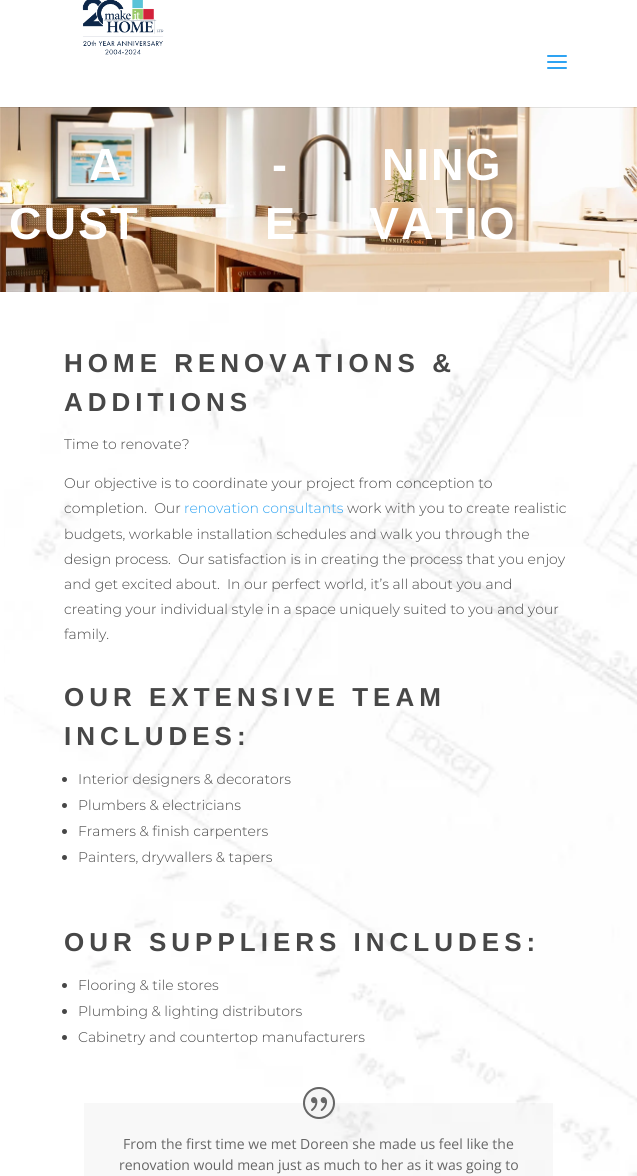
import math
import cairo

surface = cairo.ImageSurface(cairo.FORMAT_RGB24, 637, 1176)
ctx = cairo.Context(surface)
options = cairo.FontOptions()
options.set_hint_metrics(cairo.HINT_METRICS_OFF)
options.set_hint_style(cairo.HINT_STYLE_NONE)
ctx.set_font_options(options)
ctx.set_miter_limit(4)


def set_color(code):
    ctx.set_source_rgb(*(v / 255 for v in bytes.fromhex(code[-6:])))


def draw_text(x, y, s, family, size, color, bold=False, italic=False):
    ctx.select_font_face(family, cairo.FONT_SLANT_ITALIC if italic else cairo.FONT_SLANT_NORMAL, cairo.FONT_WEIGHT_BOLD if bold else cairo.FONT_WEIGHT_NORMAL)
    ctx.set_font_size(size)
    set_color(color)
    ctx.move_to(x, y)
    ctx.show_text(s)


def draw_spaced(x, y, s, letter, word):
    ctx.move_to(x, y)
    for ch in s:
        ctx.show_text(ch)
        ctx.rel_move_to(letter + word * (ch == ' '), 0)


def draw_image(path, x, y, w, h):
    ctx.save()
    ctx.set_source_surface(cairo.ImageSurface.create_from_png(path), x, y)
    ctx.rectangle(x, y, w, h)
    ctx.fill()
    ctx.restore()


set_color("#ffffff")
ctx.paint()
draw_image("assets/img3.png", 0, 107, 637, 185)
ctx.set_source_rgba(0, 0, 0, 0.1)
ctx.rectangle(0, 107, 637, 1)
ctx.fill()
draw_image("assets/img1.png", 82, 0, 82, 55)
draw_image("assets/img2.png", 547, 55, 20, 14)
ctx.select_font_face("Liberation Sans", cairo.FONT_SLANT_NORMAL, cairo.FONT_WEIGHT_BOLD)
ctx.set_font_size(45)
set_color("#ffffff")
draw_spaced(89, 180, "A", 2, 0)
draw_spaced(272, 180, "-", 2, 0)
draw_spaced(382, 180, "NING", 2, 0)
draw_spaced(9, 239, "CUST", 2, 0)
draw_spaced(265, 239, "E", 2, 0)
draw_spaced(369, 239, "VATIO", 2, 0)
draw_image("assets/img4.png", 4, 292, 633, 884)
ctx.set_font_size(26)
set_color("#474747")
draw_spaced(64, 372, "HOME RENOVATIONS &", 5, 0)
draw_spaced(64, 411, "ADDITIONS", 5, 0)
draw_text(64, 449, "Time to renovate?", "Montserrat Light", 14, "#474747")
draw_text(64, 488, "Our objective is to coordinate your project from conception to", "Montserrat Light", 14, "#474747")
draw_text(64, 513, "completion.  Our", "Montserrat Light", 14, "#474747")
draw_text(184, 513, "renovation consultants", "Montserrat Light", 14, "#2ea3f2")
draw_text(347, 513, "work with you to create realistic", "Montserrat Light", 14, "#474747")
draw_text(64, 539, "budgets, workable installation schedules and walk you through the", "Montserrat Light", 14, "#474747")
draw_text(64, 564, "design process.  Our satisfaction is in creating the process that you enjoy", "Montserrat Light", 14, "#474747")
draw_text(64, 589, "and get excited about.  In our perfect world, it’s all about you and", "Montserrat Light", 14, "#474747")
draw_text(64, 614, "creating your individual style in a space uniquely suited to you and your", "Montserrat Light", 14, "#474747")
draw_text(64, 639, "family.", "Montserrat Light", 14, "#474747")
ctx.select_font_face("Liberation Sans", cairo.FONT_SLANT_NORMAL, cairo.FONT_WEIGHT_BOLD)
ctx.set_font_size(26)
draw_spaced(64, 706, "OUR EXTENSIVE TEAM", 5, 0)
draw_spaced(64, 745, "INCLUDES:", 5, 0)
ctx.new_path()
ctx.arc(64.5, 779.5, 2.5, 0, 2 * math.pi)
ctx.fill()
draw_text(78, 784, "Interior designers & decorators", "Montserrat Light", 14, "#474747")
ctx.new_path()
ctx.arc(64.5, 805.5, 2.5, 0, 2 * math.pi)
ctx.fill()
draw_text(78, 810, "Plumbers & electricians", "Montserrat Light", 14, "#474747")
ctx.new_path()
ctx.arc(64.5, 831.5, 2.5, 0, 2 * math.pi)
ctx.fill()
draw_text(78, 836, "Framers & finish carpenters", "Montserrat Light", 14, "#474747")
ctx.new_path()
ctx.arc(64.5, 857.5, 2.5, 0, 2 * math.pi)
ctx.fill()
draw_text(78, 862, "Painters, drywallers & tapers", "Montserrat Light", 14, "#474747")
ctx.select_font_face("Liberation Sans", cairo.FONT_SLANT_NORMAL, cairo.FONT_WEIGHT_BOLD)
ctx.set_font_size(26)
draw_spaced(64, 951, "OUR SUPPLIERS INCLUDES:", 5, 0)
ctx.new_path()
ctx.arc(64.5, 985.5, 2.5, 0, 2 * math.pi)
ctx.fill()
draw_text(78, 990, "Flooring & tile stores", "Montserrat Light", 14, "#474747")
ctx.new_path()
ctx.arc(64.5, 1011.5, 2.5, 0, 2 * math.pi)
ctx.fill()
draw_text(78, 1016, "Plumbing & lighting distributors", "Montserrat Light", 14, "#474747")
ctx.new_path()
ctx.arc(64.5, 1037.5, 2.5, 0, 2 * math.pi)
ctx.fill()
draw_text(78, 1042, "Cabinetry and countertop manufacturers", "Montserrat Light", 14, "#474747")
ctx.set_source_rgba(0.459, 0.459, 0.459, 0.05)
ctx.rectangle(84, 1103, 469, 73)
ctx.fill()
set_color("#f5f5f5")
ctx.arc(319, 1103, 16, 0, 2 * math.pi)
ctx.fill()
draw_image("assets/img5.png", 303, 1087, 32, 32)
draw_text(123, 1149, "From the first time we met Doreen she made us feel like the", "Open Sans", 14, "#666666")
draw_text(119, 1170, "renovation would mean just as much to her as it was going to", "Open Sans", 14, "#666666")
surface.write_to_png("output.png")
